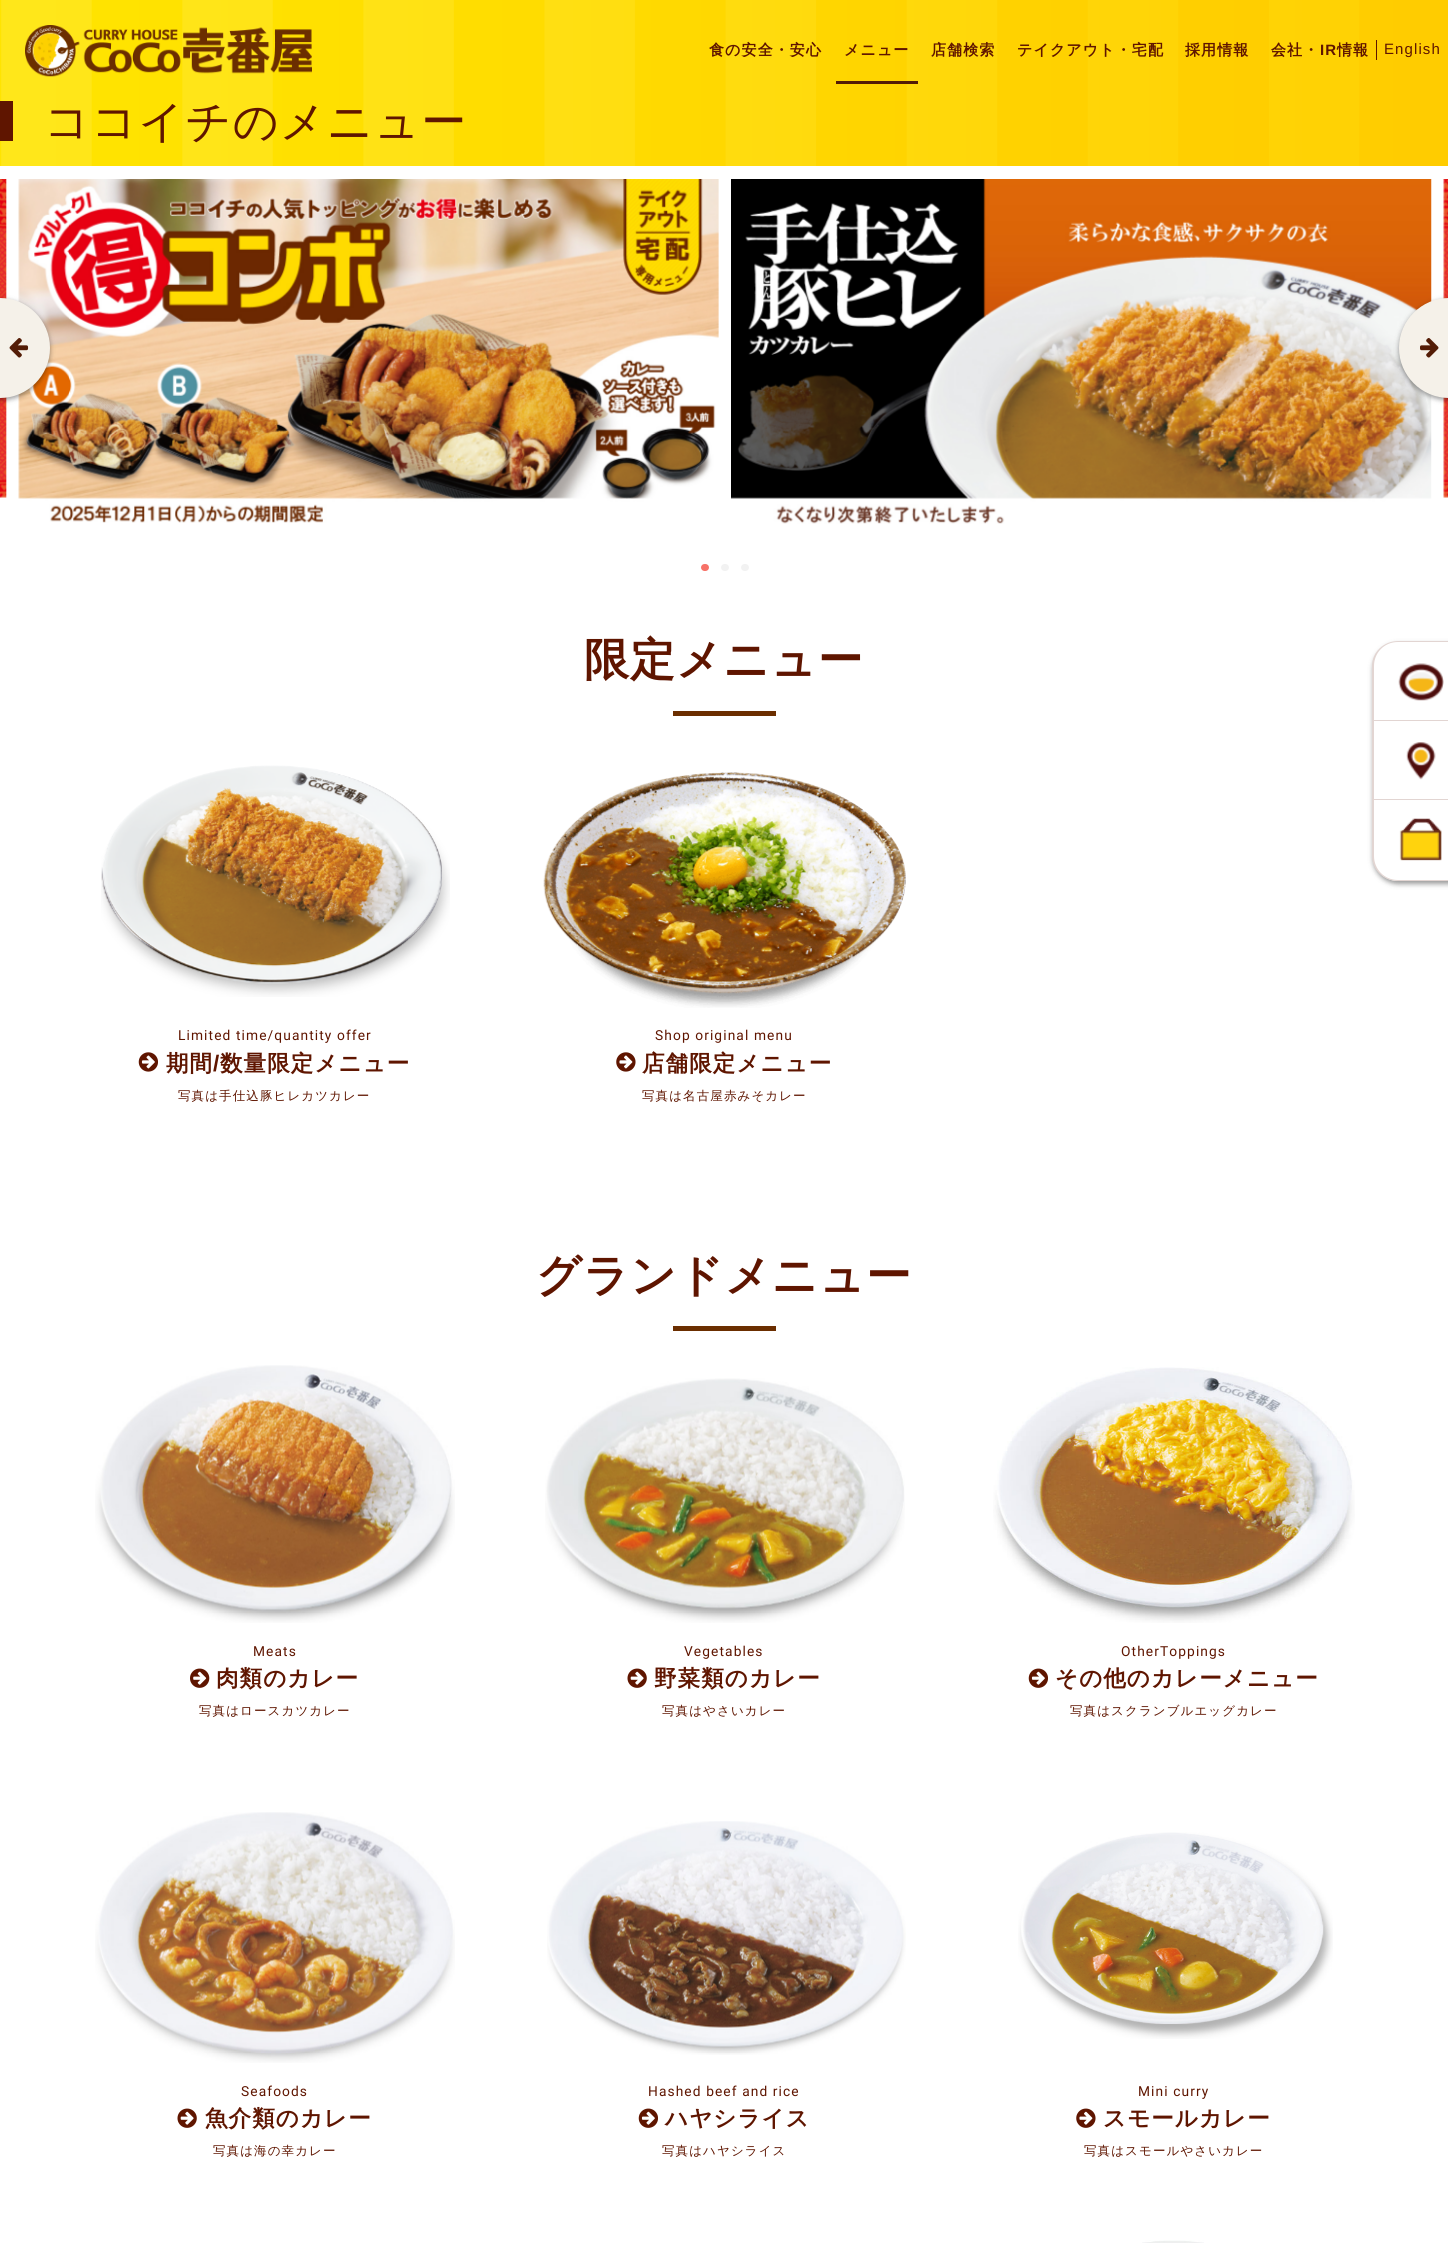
import math
import cairo

surface = cairo.ImageSurface(cairo.FORMAT_RGB24, 1448, 2243)
ctx = cairo.Context(surface)
options = cairo.FontOptions()
options.set_hint_metrics(cairo.HINT_METRICS_OFF)
options.set_hint_style(cairo.HINT_STYLE_NONE)
ctx.set_font_options(options)
ctx.set_miter_limit(4)


def set_color(code):
    ctx.set_source_rgb(*(v / 255 for v in bytes.fromhex(code[-6:])))


def draw_spaced(x, y, s, letter, word):
    ctx.move_to(x, y)
    for ch in s:
        ctx.show_text(ch)
        ctx.rel_move_to(letter + word * (ch == ' '), 0)


def fill_rect(x, y, w, h, color):
    set_color(color)
    ctx.rectangle(x, y, w, h)
    ctx.fill()


def rounded_rect(x, y, w, h, r):
    ctx.new_sub_path()
    for i, (u, v) in enumerate([(x + w - r, y + h - r), (x + r, y + h - r), (x + r, y + r), (x + w - r, y + r)]):
        ctx.arc(u, v, r, i * math.pi / 2, (i + 1) * math.pi / 2)
    ctx.close_path()


def draw_shadow(x, y, w, h, r, blur, alpha):
    ctx.push_group_with_content(cairo.CONTENT_ALPHA)
    ctx.set_operator(cairo.OPERATOR_SOURCE)
    for i in range(15, -16, -2):
        e = blur * i / 6
        if min(w, h) + 2 * e > 0:
            ctx.set_source_rgba(0, 0, 0, alpha * math.erfc((i - 1) / 8.5) / 2)
            rounded_rect(x - e, y - e, w + 2 * e, h + 2 * e, max(0, min(r + e + blur * .6, min(w, h) / 2 + e)))
            ctx.fill()
    ctx.mask(ctx.pop_group())


def draw_image(path, x, y, w, h):
    ctx.save()
    ctx.set_source_surface(cairo.ImageSurface.create_from_png(path), x, y)
    ctx.rectangle(x, y, w, h)
    ctx.fill()
    ctx.restore()


set_color("#ffffff")
ctx.paint()
draw_image("assets/img1.png", 0, 0, 1448, 166)
draw_image("assets/img2.png", 25, 25, 287, 52)
ctx.select_font_face("WenQuanYi Zen Hei", cairo.FONT_SLANT_NORMAL, cairo.FONT_WEIGHT_BOLD)
ctx.set_font_size(15)
set_color("#5f1500")
draw_spaced(709, 55, "食の安全・安心", 1.1, 0)
draw_spaced(844, 55, "メニュー", 1.1, 0)
fill_rect(836, 81, 82, 3, "#531c06")
set_color("#5f1500")
draw_spaced(931, 55, "店舗検索", 1.1, 0)
draw_spaced(1017, 55, "テイクアウト・宅配", 1.1, 0)
draw_spaced(1185, 55, "採用情報", 1.1, 0)
draw_spaced(1271, 55, "会社・", 1.1, 0)
ctx.select_font_face("Liberation Sans", cairo.FONT_SLANT_NORMAL, cairo.FONT_WEIGHT_BOLD)
draw_spaced(1320, 55, "IR", 1.1, 0)
ctx.select_font_face("WenQuanYi Zen Hei", cairo.FONT_SLANT_NORMAL, cairo.FONT_WEIGHT_BOLD)
draw_spaced(1337, 55, "情報", 1.1, 0)
fill_rect(1376, 40, 1, 20, "#5f1500")
ctx.select_font_face("Liberation Sans")
draw_spaced(1384, 54, "English", 1.1, 0)
fill_rect(0, 101, 13, 40, "#5f1500")
ctx.select_font_face("WenQuanYi Zen Hei Medium")
ctx.set_font_size(45)
draw_spaced(44, 137, "ココイチのメニュー", 1.1, 0)
draw_image("assets/img3.png", 0, 179, 7, 319)
draw_image("assets/img4.png", 18, 179, 701, 344)
draw_image("assets/img5.png", 731, 179, 701, 345)
draw_image("assets/img6.png", 1443, 179, 5, 319)
set_color("#000000")
draw_shadow(-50, 300, 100, 100, 50, 2.5, 0.4)
set_color("#f5f1e9")
ctx.new_path()
ctx.move_to(0, 298)
ctx.curve_to(27.5, 298, 50, 320.5, 50, 348)
ctx.curve_to(50, 375.5, 27.5, 398, 0, 398)
ctx.close_path()
ctx.fill()
draw_image("assets/img7.png", 9, 338, 20, 20)
set_color("#000000")
draw_shadow(1399, 300, 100, 100, 50, 2.5, 0.4)
set_color("#f5f1e9")
ctx.new_path()
ctx.move_to(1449, 298)
ctx.line_to(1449, 398)
ctx.curve_to(1421.5, 398, 1399, 375.5, 1399, 348)
ctx.curve_to(1399, 320.5, 1421.5, 298, 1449, 298)
ctx.close_path()
ctx.fill()
draw_image("assets/img8.png", 1420, 338, 19, 20)
set_color("#f77268")
rounded_rect(701, 564, 8, 7, 3.5)
ctx.fill()
set_color("#f2f2f2")
rounded_rect(721, 564, 8, 7, 3.5)
ctx.fill()
rounded_rect(741, 564, 8, 7, 3.5)
ctx.fill()
ctx.select_font_face("WenQuanYi Zen Hei", cairo.FONT_SLANT_NORMAL, cairo.FONT_WEIGHT_BOLD)
set_color("#5f1500")
draw_spaced(584, 675, "限定メニュー", 1.1, 0)
fill_rect(673, 711, 103, 5, "#6b2e00")
draw_image("assets/img9.png", 101, 765, 349, 232)
ctx.select_font_face("Roboto")
ctx.set_font_size(13.75)
set_color("#5f1500")
draw_spaced(178, 1040, "Limited time/quantity offer", 1.1, 0)
draw_image("assets/img10.png", 138, 1052, 20, 20)
ctx.select_font_face("WenQuanYi Zen Hei", cairo.FONT_SLANT_NORMAL, cairo.FONT_WEIGHT_BOLD)
ctx.set_font_size(22.5)
draw_spaced(166, 1071, "期間", 1.1, 0)
ctx.select_font_face("Liberation Sans", cairo.FONT_SLANT_NORMAL, cairo.FONT_WEIGHT_BOLD)
draw_spaced(213, 1071, "/", 1.1, 0)
ctx.select_font_face("WenQuanYi Zen Hei", cairo.FONT_SLANT_NORMAL, cairo.FONT_WEIGHT_BOLD)
draw_spaced(220, 1071, "数量限定メニュー", 1.1, 0)
ctx.select_font_face("WenQuanYi Zen Hei Medium")
ctx.set_font_size(12.5)
draw_spaced(178, 1100, "写真は手仕込豚ヒレカツカレー", 1.1, 0)
draw_image("assets/img11.png", 543, 772, 363, 236)
ctx.select_font_face("Roboto")
ctx.set_font_size(13.75)
draw_spaced(655, 1040, "Shop original menu", 1.1, 0)
draw_image("assets/img12.png", 616, 1052, 20, 20)
ctx.select_font_face("WenQuanYi Zen Hei", cairo.FONT_SLANT_NORMAL, cairo.FONT_WEIGHT_BOLD)
ctx.set_font_size(22.5)
draw_spaced(642, 1071, "店舗限定メニュー", 1.1, 0)
ctx.select_font_face("WenQuanYi Zen Hei Medium")
ctx.set_font_size(12.5)
draw_spaced(642, 1100, "写真は名古屋赤みそカレー", 1.1, 0)
ctx.select_font_face("WenQuanYi Zen Hei", cairo.FONT_SLANT_NORMAL, cairo.FONT_WEIGHT_BOLD)
ctx.set_font_size(45)
draw_spaced(536, 1291, "グランドメニュー", 1.1, 0)
fill_rect(673, 1326, 103, 5, "#6b2e00")
draw_image("assets/img13.png", 95, 1365, 360, 258)
ctx.select_font_face("Roboto")
ctx.set_font_size(13.75)
set_color("#5f1500")
draw_spaced(253, 1656, "Meats", 1.1, 0)
draw_image("assets/img14.png", 190, 1668, 20, 20)
ctx.select_font_face("WenQuanYi Zen Hei", cairo.FONT_SLANT_NORMAL, cairo.FONT_WEIGHT_BOLD)
ctx.set_font_size(22.5)
draw_spaced(216, 1686, "肉類のカレー", 1.1, 0)
ctx.select_font_face("WenQuanYi Zen Hei Medium")
ctx.set_font_size(12.5)
draw_spaced(199, 1715, "写真はロースカツカレー", 1.1, 0)
draw_image("assets/img15.png", 545, 1378, 360, 245)
ctx.select_font_face("Roboto")
ctx.set_font_size(13.75)
draw_spaced(684, 1656, "Vegetables", 1.1, 0)
draw_image("assets/img16.png", 627, 1668, 20, 20)
ctx.select_font_face("WenQuanYi Zen Hei", cairo.FONT_SLANT_NORMAL, cairo.FONT_WEIGHT_BOLD)
ctx.set_font_size(22.5)
draw_spaced(654, 1686, "野菜類のカレー", 1.1, 0)
ctx.select_font_face("WenQuanYi Zen Hei Medium")
ctx.set_font_size(12.5)
draw_spaced(662, 1715, "写真はやさいカレー", 1.1, 0)
draw_image("assets/img17.png", 993, 1367, 362, 256)
ctx.select_font_face("Roboto")
ctx.set_font_size(13.75)
draw_spaced(1121, 1656, "OtherToppings", 1.1, 0)
draw_image("assets/img18.png", 1028, 1668, 20, 20)
ctx.select_font_face("WenQuanYi Zen Hei", cairo.FONT_SLANT_NORMAL, cairo.FONT_WEIGHT_BOLD)
ctx.set_font_size(22.5)
draw_spaced(1055, 1686, "その他のカレーメニュー", 1.1, 0)
ctx.select_font_face("WenQuanYi Zen Hei Medium")
ctx.set_font_size(12.5)
draw_spaced(1070, 1715, "写真はスクランブルエッグカレー", 1.1, 0)
draw_image("assets/img19.png", 95, 1812, 360, 251)
ctx.select_font_face("Roboto")
ctx.set_font_size(13.75)
draw_spaced(241, 2096, "Seafoods", 1.1, 0)
draw_image("assets/img16.png", 177, 2108, 20, 20)
ctx.select_font_face("WenQuanYi Zen Hei", cairo.FONT_SLANT_NORMAL, cairo.FONT_WEIGHT_BOLD)
ctx.set_font_size(22.5)
draw_spaced(205, 2126, "魚介類のカレー", 1.1, 0)
ctx.select_font_face("WenQuanYi Zen Hei Medium")
ctx.set_font_size(12.5)
draw_spaced(213, 2155, "写真は海の幸カレー", 1.1, 0)
draw_image("assets/img20.png", 547, 1821, 359, 234)
ctx.select_font_face("Roboto")
ctx.set_font_size(13.75)
draw_spaced(648, 2096, "Hashed beef and rice", 1.1, 0)
draw_image("assets/img18.png", 638, 2108, 20, 20)
ctx.select_font_face("WenQuanYi Zen Hei", cairo.FONT_SLANT_NORMAL, cairo.FONT_WEIGHT_BOLD)
ctx.set_font_size(22.5)
draw_spaced(665, 2126, "ハヤシライス", 1.1, 0)
ctx.select_font_face("WenQuanYi Zen Hei Medium")
ctx.set_font_size(12.5)
draw_spaced(662, 2155, "写真はハヤシライス", 1.1, 0)
draw_image("assets/img21.png", 1018, 1832, 315, 207)
ctx.select_font_face("Roboto")
ctx.set_font_size(13.75)
draw_spaced(1138, 2096, "Mini curry", 1.1, 0)
draw_image("assets/img22.png", 1076, 2108, 20, 20)
ctx.select_font_face("WenQuanYi Zen Hei", cairo.FONT_SLANT_NORMAL, cairo.FONT_WEIGHT_BOLD)
ctx.set_font_size(22.5)
draw_spaced(1103, 2126, "スモールカレー", 1.1, 0)
ctx.select_font_face("WenQuanYi Zen Hei Medium")
ctx.set_font_size(12.5)
draw_spaced(1084, 2155, "写真はスモールやさいカレー", 1.1, 0)
draw_image("assets/img23.png", 1142, 2240, 62, 3)
set_color("#000000")
draw_shadow(1373, 644, 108, 240, 25, 2.5, 0.4)
set_color("#ffffff")
ctx.new_path()
ctx.move_to(1398, 641)
ctx.line_to(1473, 641)
ctx.line_to(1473, 881)
ctx.line_to(1398, 881)
ctx.curve_to(1384, 881, 1373, 870, 1373, 856)
ctx.line_to(1373, 666)
ctx.curve_to(1373, 652, 1384, 641, 1398, 641)
ctx.close_path()
ctx.fill()
set_color("#e2d5d2")
ctx.set_fill_rule(cairo.FILL_RULE_EVEN_ODD)
ctx.new_path()
ctx.move_to(1398, 641)
ctx.line_to(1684, 641)
ctx.line_to(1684, 881)
ctx.line_to(1398, 881)
ctx.curve_to(1384, 881, 1372, 870, 1372, 856)
ctx.line_to(1372, 666)
ctx.curve_to(1372, 652, 1384, 641, 1398, 641)
ctx.close_path()
ctx.move_to(1398, 642)
ctx.line_to(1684, 642)
ctx.line_to(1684, 880)
ctx.line_to(1398, 880)
ctx.curve_to(1384, 880, 1374, 869, 1374, 856)
ctx.line_to(1374, 666)
ctx.curve_to(1374, 653, 1384, 642, 1398, 642)
ctx.close_path()
ctx.fill()
draw_image("assets/img24.png", 1398, 663, 46, 38)
fill_rect(1374, 720, 74, 1, "#e2d5d2")
draw_image("assets/img25.png", 1406, 742, 30, 38)
fill_rect(1374, 799, 74, 1, "#e2d5d2")
draw_image("assets/img26.png", 1399, 818, 43, 43)
surface.write_to_png("output.png")
